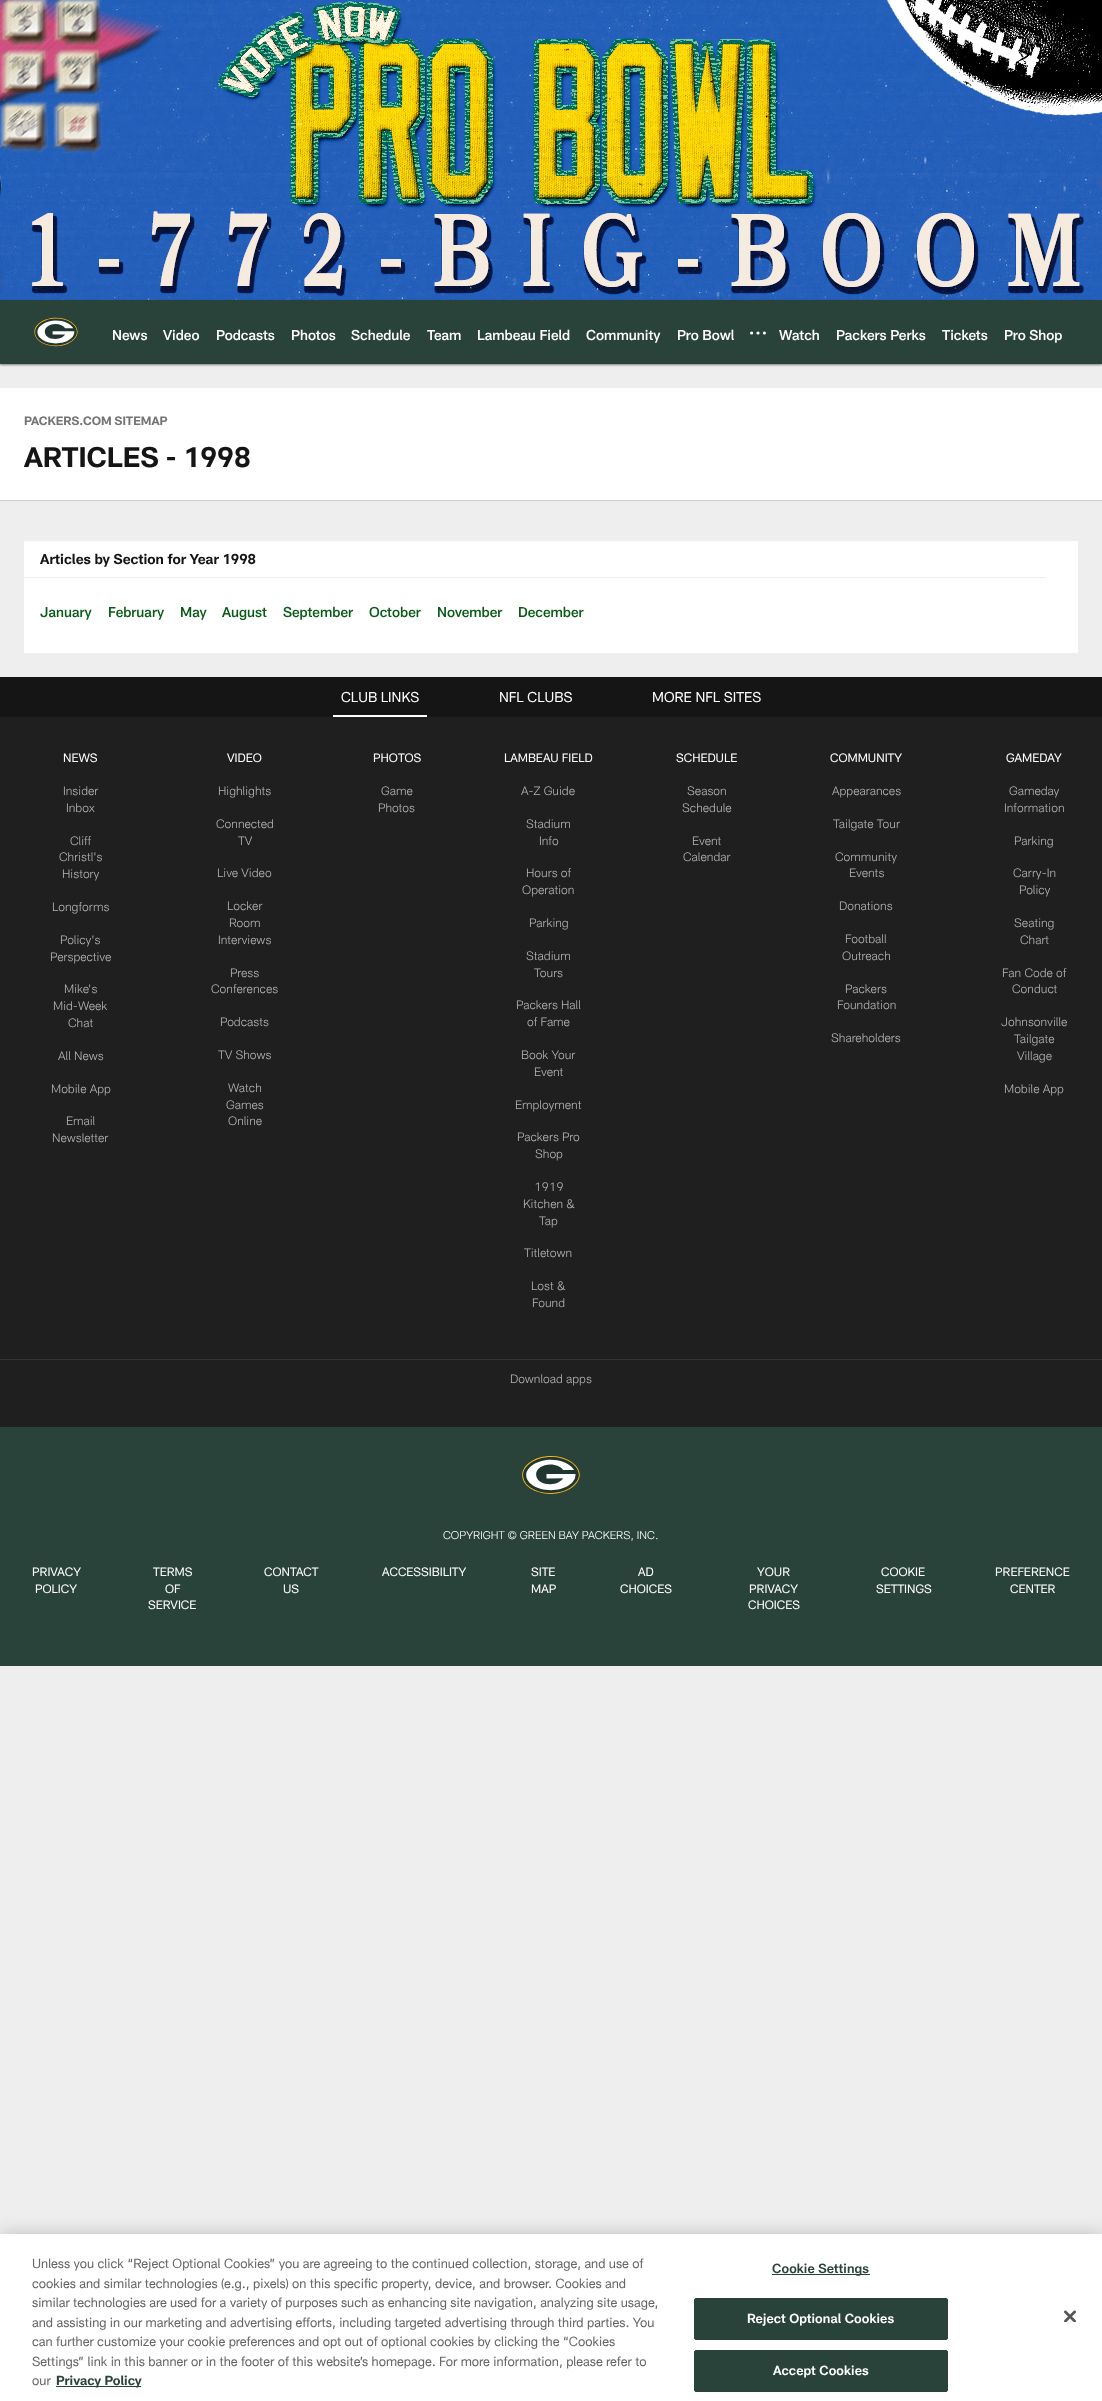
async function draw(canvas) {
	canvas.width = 1102;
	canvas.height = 2401;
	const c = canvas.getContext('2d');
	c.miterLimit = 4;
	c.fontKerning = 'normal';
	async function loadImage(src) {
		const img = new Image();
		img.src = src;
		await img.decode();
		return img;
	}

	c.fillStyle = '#eee';
	c.fillRect(0, 0, 1102, 2401);
	c.drawImage(await loadImage('img1.png'), 0, 0, 1102, 300);
	c.fillStyle = '#00000078';
	c.filter = 'blur(1px)';
	c.beginPath();
	c.rect(0, 301, 1102, 64);
	c.fill();
	c.filter = 'none';
	c.fillStyle = '#2a433a';
	c.fillRect(0, 300, 1102, 64);
	c.drawImage(await loadImage('img2.png'), 34, 317, 44, 30);
	c.font = '500 14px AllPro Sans';
	c.fillStyle = '#fff';
	for (const [text, x, y] of [
		['News', 112, 340],
		['Video', 163, 340],
		['Podcasts', 216, 340],
		['Photos', 291, 340],
		['Schedule', 351, 340],
		['Team', 427, 340],
		['Lambeau Field', 477, 340],
		['Community', 586, 340],
		['Pro Bowl', 677, 340],
	]) {
		c.fillText(text, x, y);
	}
	c.beginPath();
	c.arc(764.4, 333, 1.6, 0, 2 * Math.PI);
	c.fill();
	c.beginPath();
	c.arc(758, 333, 1.6, 0, 2 * Math.PI);
	c.fill();
	c.beginPath();
	c.arc(751.6, 333, 1.6, 0, 2 * Math.PI);
	c.fill();
	for (const [text, x, y] of [
		['Watch', 779, 340],
		['Packers Perks', 836, 340],
		['Tickets', 942, 340],
		['Pro Shop', 1004, 340],
	]) {
		c.fillText(text, x, y);
	}
	c.fillRect(0, 388, 1102, 112);
	c.fillStyle = '#ccc';
	c.fillRect(0, 500, 1102, 1);
	c.font = 'bold 12px AllPro Sans';
	c.fillStyle = '#757575';
	c.fillText('PACKERS.COM SITEMAP', 24, 425);
	c.font = 'bold 28px AllPro Sans';
	c.fillStyle = '#151515';
	c.fillText('ARTICLES - 1998', 24, 467);
	c.fillStyle = '#fff';
	c.fillRect(24, 541, 1054, 112);
	c.font = 'bold 14px AllPro Sans';
	c.fillStyle = '#151515';
	c.fillText('Articles by Section for Year 1998', 40, 564);
	c.fillStyle = '#eee';
	c.fillRect(24, 577, 1022, 1);
	c.font = '500 14px AllPro Sans';
	c.fillStyle = '#085c16';
	for (const [text, x, y] of [
		['January', 40, 617],
		['February', 108, 617],
		['May', 180, 617],
		['August', 222, 617],
		['September', 283, 617],
		['October', 369, 617],
		['November', 437, 617],
		['December', 518, 617],
	]) {
		c.fillText(text, x, y);
	}
	for (const [x, y, w, h, color] of [
		[0, 717, 1102, 642, '#1f1f1f'],
		[0, 677, 1102, 40, '#151515'],
		[333, 715, 94, 2, '#fff'],
	]) {
		c.fillStyle = color;
		c.fillRect(x, y, w, h);
	}
	c.font = '14px AllPro Sans';
	for (const [text, x, y] of [
		['CLUB LINKS', 341, 702],
		['NFL CLUBS', 499, 702],
		['MORE NFL SITES', 652, 702],
	]) {
		c.fillText(text, x, y);
	}
	c.font = '12px AllPro Sans';
	c.fillText('NEWS', 63, 762);
	c.font = '300 12px AllPro Sans';
	c.fillStyle = '#b2b2b2';
	for (const [text, x, y] of [
		['Insider', 63, 795],
		['Inbox', 66, 812],
		['Cliff', 70, 845],
		['Christl\'s', 59, 861],
		['History', 62, 878],
		['Longforms', 52, 911],
		['Policy\'s', 60, 944],
		['Perspective', 50, 961],
		['Mike\'s', 64, 993],
		['Mid-Week', 53, 1010],
		['Chat', 68, 1027],
		['All News', 58, 1060],
		['Mobile App', 51, 1093],
		['Email', 66, 1125],
		['Newsletter', 52, 1142],
	]) {
		c.fillText(text, x, y);
	}
	c.font = '12px AllPro Sans';
	c.fillStyle = '#fff';
	c.fillText('VIDEO', 227, 762);
	c.font = '300 12px AllPro Sans';
	c.fillStyle = '#b2b2b2';
	for (const [text, x, y] of [
		['Highlights', 218, 795],
		['Connected', 216, 828],
		['TV', 238, 845],
		['Live Video', 217, 877],
		['Locker', 227, 910],
		['Room', 229, 927],
		['Interviews', 218, 944],
		['Press', 230, 977],
		['Conferences', 211, 993],
		['Podcasts', 220, 1026],
		['TV Shows', 218, 1059],
		['Watch', 228, 1092],
		['Games', 226, 1109],
		['Online', 228, 1125],
	]) {
		c.fillText(text, x, y);
	}
	c.font = '12px AllPro Sans';
	c.fillStyle = '#fff';
	c.fillText('PHOTOS', 373, 762);
	c.font = '300 12px AllPro Sans';
	c.fillStyle = '#b2b2b2';
	c.fillText('Game', 381, 795);
	c.fillText('Photos', 378, 812);
	c.font = '12px AllPro Sans';
	c.fillStyle = '#fff';
	c.fillText('LAMBEAU FIELD', 504, 762);
	c.font = '300 12px AllPro Sans';
	c.fillStyle = '#b2b2b2';
	for (const [text, x, y] of [
		['A-Z Guide', 521, 795],
		['Stadium', 526, 828],
		['Info', 539, 845],
		['Hours of', 526, 877],
		['Operation', 522, 894],
		['Parking', 529, 927],
		['Stadium', 526, 960],
		['Tours', 534, 977],
		['Packers Hall', 516, 1009],
		['of Fame', 527, 1026],
		['Book Your', 521, 1059],
		['Event', 534, 1076],
		['Employment', 515, 1109],
		['Packers Pro', 517, 1141],
		['Shop', 535, 1158],
		['1919', 534, 1191],
		['Kitchen &', 523, 1208],
		['Tap', 539, 1225],
		['Titletown', 524, 1257],
		['Lost &', 531, 1290],
		['Found', 532, 1307],
	]) {
		c.fillText(text, x, y);
	}
	c.font = '12px AllPro Sans';
	c.fillStyle = '#fff';
	c.fillText('SCHEDULE', 676, 762);
	c.font = '300 12px AllPro Sans';
	c.fillStyle = '#b2b2b2';
	for (const [text, x, y] of [
		['Season', 687, 795],
		['Schedule', 682, 812],
		['Event', 692, 845],
		['Calendar', 683, 861],
	]) {
		c.fillText(text, x, y);
	}
	c.font = '12px AllPro Sans';
	c.fillStyle = '#fff';
	c.fillText('COMMUNITY', 830, 762);
	c.font = '300 12px AllPro Sans';
	c.fillStyle = '#b2b2b2';
	for (const [text, x, y] of [
		['Appearances', 832, 795],
		['Tailgate Tour', 833, 828],
		['Community', 835, 861],
		['Events', 849, 877],
		['Donations', 839, 910],
		['Football', 845, 943],
		['Outreach', 842, 960],
		['Packers', 845, 993],
		['Foundation', 837, 1009],
		['Shareholders', 831, 1042],
	]) {
		c.fillText(text, x, y);
	}
	c.font = '12px AllPro Sans';
	c.fillStyle = '#fff';
	c.fillText('GAMEDAY', 1006, 762);
	c.font = '300 12px AllPro Sans';
	c.fillStyle = '#b2b2b2';
	for (const [text, x, y] of [
		['Gameday', 1009, 795],
		['Information', 1004, 812],
		['Parking', 1014, 845],
		['Carry-In', 1013, 877],
		['Policy', 1019, 894],
		['Seating', 1014, 927],
		['Chart', 1020, 944],
		['Fan Code of', 1002, 977],
		['Conduct', 1012, 993],
		['Johnsonville', 1001, 1026],
		['Tailgate', 1014, 1043],
		['Village', 1017, 1060],
		['Mobile App', 1004, 1093],
	]) {
		c.fillText(text, x, y);
	}
	c.fillStyle = '#1f1f1f';
	c.fillRect(0, 1360, 1102, 67);
	c.fillStyle = '#333';
	c.fillRect(0, 1359, 1102, 1);
	c.fillStyle = '#b2b2b2';
	c.fillText('Download apps', 510, 1383);
	c.fillStyle = '#2a433a';
	c.fillRect(0, 1427, 1102, 239);
	c.drawImage(await loadImage('img3.png'), 522, 1456, 58, 38);
	c.font = '300 11px AllPro Sans';
	c.fillStyle = '#fff';
	c.fillText('COPYRIGHT © GREEN BAY PACKERS, INC.', 443, 1539);
	c.font = '12px AllPro Sans';
	for (const [text, x, y] of [
		['PRIVACY', 32, 1576],
		['POLICY', 35, 1593],
		['TERMS', 153, 1576],
		['OF', 165, 1593],
		['SERVICE', 148, 1609],
		['CONTACT', 264, 1576],
		['US', 283, 1593],
		['ACCESSIBILITY', 382, 1576],
		['SITE', 531, 1576],
		['MAP', 531, 1593],
		['AD', 638, 1576],
		['CHOICES', 620, 1593],
		['YOUR', 757, 1576],
		['PRIVACY', 749, 1593],
		['CHOICES', 748, 1609],
		['COOKIE', 881, 1576],
		['SETTINGS', 876, 1593],
		['PREFERENCE', 995, 1576],
		['CENTER', 1010, 1593],
	]) {
		c.fillText(text, x, y);
	}
	c.fillStyle = '#00000033';
	c.filter = 'blur(9px)';
	c.beginPath();
	c.rect(0, 2234, 1102, 167);
	c.fill();
	c.filter = 'none';
	c.fillStyle = '#fff';
	c.fillRect(0, 2234, 1102, 167);
	c.font = '13px AllPro Sans';
	c.fillStyle = '#666';
	for (const [text, x, y] of [
		['Unless you click “Reject Optional Cookies” you are agreeing to the continued collection, storage, and use of', 32, 2268],
		['cookies and similar technologies (e.g., pixels) on this specific property, device, and browser. Cookies and', 32, 2288],
		['similar technologies are used for a variety of purposes such as enhancing site navigation, analyzing site usage,', 32, 2307],
		['and assisting in our marketing and advertising efforts, including targeted advertising through third parties. You', 32, 2327],
		['can further customize your cookie preferences and opt out of optional cookies by clicking the “Cookies', 32, 2346],
		['Settings” link in this banner or in the footer of this website’s homepage. For more information, please refer to', 32, 2366],
		['our', 32, 2385],
	]) {
		c.fillText(text, x, y);
	}
	c.fillStyle = '#2a433a';
	c.fillRect(56, 2386, 85, 1);
	c.font = 'bold 13px AllPro Sans';
	c.fillText('Privacy Policy', 56, 2385);
	c.fillRect(772, 2274, 98, 1);
	c.letterSpacing = '0.1px';
	c.font = '600 13px AllPro Sans';
	c.fillText('Cookie Settings', 772, 2273);
	c.beginPath();
	c.roundRect(694.5, 2298.5, 253, 41, 1.5);
	c.fill();
	c.strokeStyle = '#2a433a';
	c.stroke();
	c.fillStyle = '#fff';
	c.fillText('Reject Optional Cookies', 747, 2323);
	c.fillStyle = '#2a433a';
	c.beginPath();
	c.roundRect(694.5, 2350.5, 253, 41, 1.5);
	c.fill();
	c.stroke();
	c.fillStyle = '#fff';
	c.fillText('Accept Cookies', 773, 2375);
	c.drawImage(await loadImage('img4.png'), 1064, 2310, 12, 12);
}

draw(document.querySelector('canvas'));
